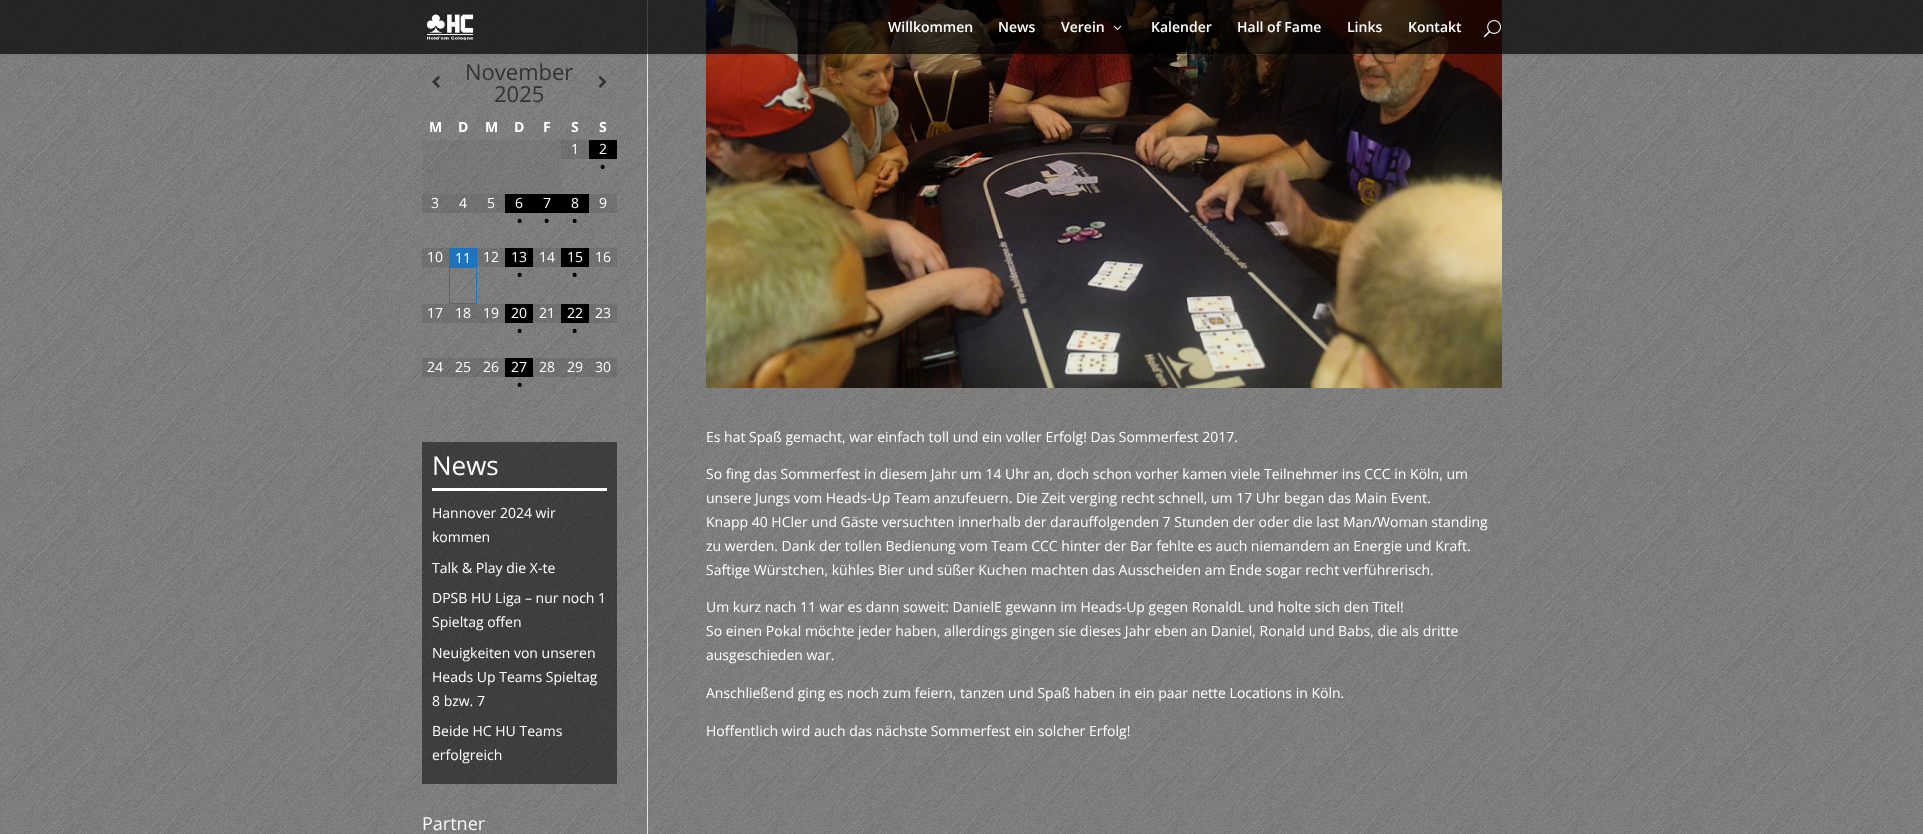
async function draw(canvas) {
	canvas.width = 1923;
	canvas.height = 834;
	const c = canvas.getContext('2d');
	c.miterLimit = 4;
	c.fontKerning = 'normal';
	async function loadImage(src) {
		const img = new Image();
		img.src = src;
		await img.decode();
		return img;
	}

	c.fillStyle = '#fff';
	c.fillRect(0, 0, 1923, 834);
	c.drawImage(await loadImage('img4.png'), 0, 0, 1923, 834);
	c.fillStyle = '#e2e2e2';
	c.fillRect(647, 0, 1, 834);
	c.drawImage(await loadImage('img7.png'), 706, 0, 796, 388);
	c.save();
	c.beginPath();
	c.rect(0, 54, 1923, 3);
	c.clip();
	c.fillStyle = '#0000001a';
	c.filter = 'blur(3.5px)';
	c.beginPath();
	c.rect(0, 0, 1923, 54);
	c.fill();
	c.filter = 'none';
	c.restore();
	c.fillStyle = '#000000b3';
	c.fillRect(0, 0, 1923, 54);
	c.drawImage(await loadImage('img1.png'), 427, 14, 47, 27);
	c.font = '600 14px Open Sans';
	c.fillStyle = '#fff';
	for (const [text, x, y] of [
		['Willkommen', 888, 32],
		['News', 998, 32],
		['Verein', 1061, 32],
	]) {
		c.fillText(text, x, y);
	}
	c.drawImage(await loadImage('img2.png'), 1113, 25, 9, 5);
	for (const [text, x, y] of [
		['Kalender', 1151, 32],
		['Hall of Fame', 1237, 32],
		['Links', 1347, 32],
		['Kontakt', 1408, 32],
	]) {
		c.fillText(text, x, y);
	}
	c.drawImage(await loadImage('img3.png'), 1484, 20, 17, 18);
	c.drawImage(await loadImage('img5.png'), 432, 76, 8, 12);
	c.font = '22px Open Sans';
	c.fillStyle = '#333';
	c.fillText('November', 465, 80);
	c.fillText('2025', 494, 102);
	c.drawImage(await loadImage('img6.png'), 598, 76, 9, 12);
	c.font = 'bold 14px Open Sans';
	c.fillStyle = '#fff';
	for (const [text, x, y] of [
		['M', 429, 132],
		['D', 458, 132],
		['M', 485, 132],
		['D', 514, 132],
		['F', 543, 132],
		['S', 571, 132],
		['S', 599, 132],
	]) {
		c.fillText(text, x, y);
	}
	for (const [x, y, w, h, color] of [
		[422, 140, 27, 54, '#0000000a'],
		[449, 140, 28, 54, '#0000000a'],
		[477, 140, 28, 54, '#0000000a'],
		[505, 140, 28, 54, '#0000000a'],
		[533, 140, 28, 54, '#0000000a'],
		[561, 140, 28, 19, '#0000001a'],
	]) {
		c.fillStyle = color;
		c.fillRect(x, y, w, h);
	}
	c.font = '14px Open Sans';
	c.fillStyle = '#fff';
	c.fillText('1', 571, 154);
	c.fillStyle = '#000';
	c.fillRect(589, 140, 28, 19);
	c.fillStyle = '#fff';
	c.fillText('2', 599, 154);
	c.font = 'bold 14px Open Sans';
	c.fillStyle = '#000';
	c.fillText('•', 600, 172);
	c.fillStyle = '#0000001a';
	c.fillRect(422, 194, 27, 19);
	c.font = '14px Open Sans';
	c.fillStyle = '#fff';
	c.fillText('3', 431, 208);
	c.fillStyle = '#0000001a';
	c.fillRect(449, 194, 28, 19);
	c.fillStyle = '#fff';
	c.fillText('4', 459, 208);
	c.fillStyle = '#0000001a';
	c.fillRect(477, 194, 28, 19);
	c.fillStyle = '#fff';
	c.fillText('5', 487, 208);
	c.fillStyle = '#000';
	c.fillRect(505, 194, 84, 19);
	c.fillStyle = '#fff';
	c.fillText('6', 515, 208);
	c.font = 'bold 14px Open Sans';
	c.fillStyle = '#000';
	c.fillText('•', 517, 226);
	c.font = '14px Open Sans';
	c.fillStyle = '#fff';
	c.fillText('7', 543, 208);
	c.font = 'bold 14px Open Sans';
	c.fillStyle = '#000';
	c.fillText('•', 544, 226);
	c.font = '14px Open Sans';
	c.fillStyle = '#fff';
	c.fillText('8', 571, 208);
	c.font = 'bold 14px Open Sans';
	c.fillStyle = '#000';
	c.fillText('•', 572, 226);
	c.fillStyle = '#0000001a';
	c.fillRect(589, 194, 28, 19);
	c.font = '14px Open Sans';
	c.fillStyle = '#fff';
	c.fillText('9', 599, 208);
	c.fillStyle = '#0000001a';
	c.fillRect(422, 248, 27, 19);
	c.fillStyle = '#fff';
	c.fillText('10', 427, 262);
	c.strokeStyle = '#1e73be';
	c.strokeRect(449.5, 248.5, 27, 55);
	c.fillStyle = '#1e73be';
	c.fillRect(450, 249, 26, 19);
	c.fillStyle = '#fff';
	c.fillText('11', 455, 263);
	c.fillStyle = '#0000001a';
	c.fillRect(477, 248, 28, 19);
	c.fillStyle = '#fff';
	c.fillText('12', 483, 262);
	c.fillStyle = '#000';
	c.fillRect(505, 248, 28, 19);
	c.fillStyle = '#fff';
	c.fillText('13', 511, 262);
	c.font = 'bold 14px Open Sans';
	c.fillStyle = '#000';
	c.fillText('•', 517, 280);
	c.fillStyle = '#0000001a';
	c.fillRect(533, 248, 28, 19);
	c.font = '14px Open Sans';
	c.fillStyle = '#fff';
	c.fillText('14', 539, 262);
	c.fillStyle = '#000';
	c.fillRect(561, 248, 28, 19);
	c.fillStyle = '#fff';
	c.fillText('15', 567, 262);
	c.font = 'bold 14px Open Sans';
	c.fillStyle = '#000';
	c.fillText('•', 572, 280);
	c.fillStyle = '#0000001a';
	c.fillRect(589, 248, 28, 19);
	c.font = '14px Open Sans';
	c.fillStyle = '#fff';
	c.fillText('16', 595, 262);
	c.fillStyle = '#0000001a';
	c.fillRect(422, 304, 27, 19);
	c.fillStyle = '#fff';
	c.fillText('17', 427, 318);
	c.fillStyle = '#0000001a';
	c.fillRect(449, 304, 28, 19);
	c.fillStyle = '#fff';
	c.fillText('18', 455, 318);
	c.fillStyle = '#0000001a';
	c.fillRect(477, 304, 28, 19);
	c.fillStyle = '#fff';
	c.fillText('19', 483, 318);
	c.fillStyle = '#000';
	c.fillRect(505, 304, 28, 19);
	c.fillStyle = '#fff';
	c.fillText('20', 511, 318);
	c.font = 'bold 14px Open Sans';
	c.fillStyle = '#000';
	c.fillText('•', 517, 336);
	c.fillStyle = '#0000001a';
	c.fillRect(533, 304, 28, 19);
	c.font = '14px Open Sans';
	c.fillStyle = '#fff';
	c.fillText('21', 539, 318);
	c.fillStyle = '#000';
	c.fillRect(561, 304, 28, 19);
	c.fillStyle = '#fff';
	c.fillText('22', 567, 318);
	c.font = 'bold 14px Open Sans';
	c.fillStyle = '#000';
	c.fillText('•', 572, 336);
	c.fillStyle = '#0000001a';
	c.fillRect(589, 304, 28, 19);
	c.font = '14px Open Sans';
	c.fillStyle = '#fff';
	c.fillText('23', 595, 318);
	c.fillStyle = '#0000001a';
	c.fillRect(422, 358, 27, 19);
	c.fillStyle = '#fff';
	c.fillText('24', 427, 372);
	c.fillStyle = '#0000001a';
	c.fillRect(449, 358, 28, 19);
	c.fillStyle = '#fff';
	c.fillText('25', 455, 372);
	c.fillStyle = '#0000001a';
	c.fillRect(477, 358, 28, 19);
	c.fillStyle = '#fff';
	c.fillText('26', 483, 372);
	c.fillStyle = '#000';
	c.fillRect(505, 358, 28, 19);
	c.fillStyle = '#fff';
	c.fillText('27', 511, 372);
	c.font = 'bold 14px Open Sans';
	c.fillStyle = '#000';
	c.fillText('•', 517, 390);
	c.fillStyle = '#0000001a';
	c.fillRect(533, 358, 28, 19);
	c.font = '14px Open Sans';
	c.fillStyle = '#fff';
	c.fillText('28', 539, 372);
	c.fillStyle = '#0000001a';
	c.fillRect(561, 358, 28, 19);
	c.fillStyle = '#fff';
	c.fillText('29', 567, 372);
	c.fillStyle = '#0000001a';
	c.fillRect(589, 358, 28, 19);
	c.fillStyle = '#fff';
	c.fillText('30', 595, 372);
	c.fillStyle = '#00000080';
	c.fillRect(422, 442, 195, 342);
	c.fillStyle = '#fff';
	c.fillRect(432, 488, 175, 3);
	c.font = '26px Open Sans';
	c.fillText('News', 432, 475);
	c.font = '14px Open Sans';
	for (const [text, x, y] of [
		['Hannover 2024 wir', 432, 518],
		['kommen', 432, 542],
		['Talk & Play die X-te', 432, 573],
		['DPSB HU Liga – nur noch 1', 432, 603],
		['Spieltag offen', 432, 627],
		['Neuigkeiten von unseren', 432, 658],
		['Heads Up Teams Spieltag', 432, 682],
		['8 bzw. 7', 432, 706],
		['Beide HC HU Teams', 432, 736],
		['erfolgreich', 432, 760],
	]) {
		c.fillText(text, x, y);
	}
	c.font = '18px Open Sans';
	c.fillStyle = '#f8f8f8';
	c.fillText('Partner', 422, 830);
	c.font = '14px Open Sans';
	c.fillStyle = '#fff';
	for (const [text, x, y] of [
		['Es hat Spaß gemacht, war einfach toll und ein voller Erfolg! Das Sommerfest 2017.', 706, 442],
		['So fing das Sommerfest in diesem Jahr um 14 Uhr an, doch schon vorher kamen viele Teilnehmer ins CCC in Köln, um', 706, 479],
		['unsere Jungs vom Heads-Up Team anzufeuern. Die Zeit verging recht schnell, um 17 Uhr began das Main Event.', 706, 503],
		['Knapp 40 HCler und Gäste versuchten innerhalb der darauffolgenden 7 Stunden der oder die last Man/Woman standing', 706, 527],
		['zu werden. Dank der tollen Bedienung vom Team CCC hinter der Bar fehlte es auch niemandem an Energie und Kraft.', 706, 551],
		['Saftige Würstchen, kühles Bier und süßer Kuchen machten das Ausscheiden am Ende sogar recht verführerisch.', 706, 575],
		['Um kurz nach 11 war es dann soweit: DanielE gewann im Heads-Up gegen RonaldL und holte sich den Titel!', 706, 612],
		['So einen Pokal möchte jeder haben, allerdings gingen sie dieses Jahr eben an Daniel, Ronald und Babs, die als dritte', 706, 636],
		['ausgeschieden war.', 706, 660],
		['Anschließend ging es noch zum feiern, tanzen und Spaß haben in ein paar nette Locations in Köln.', 706, 698],
		['Hoffentlich wird auch das nächste Sommerfest ein solcher Erfolg!', 706, 736],
	]) {
		c.fillText(text, x, y);
	}
}

draw(document.querySelector('canvas'));
